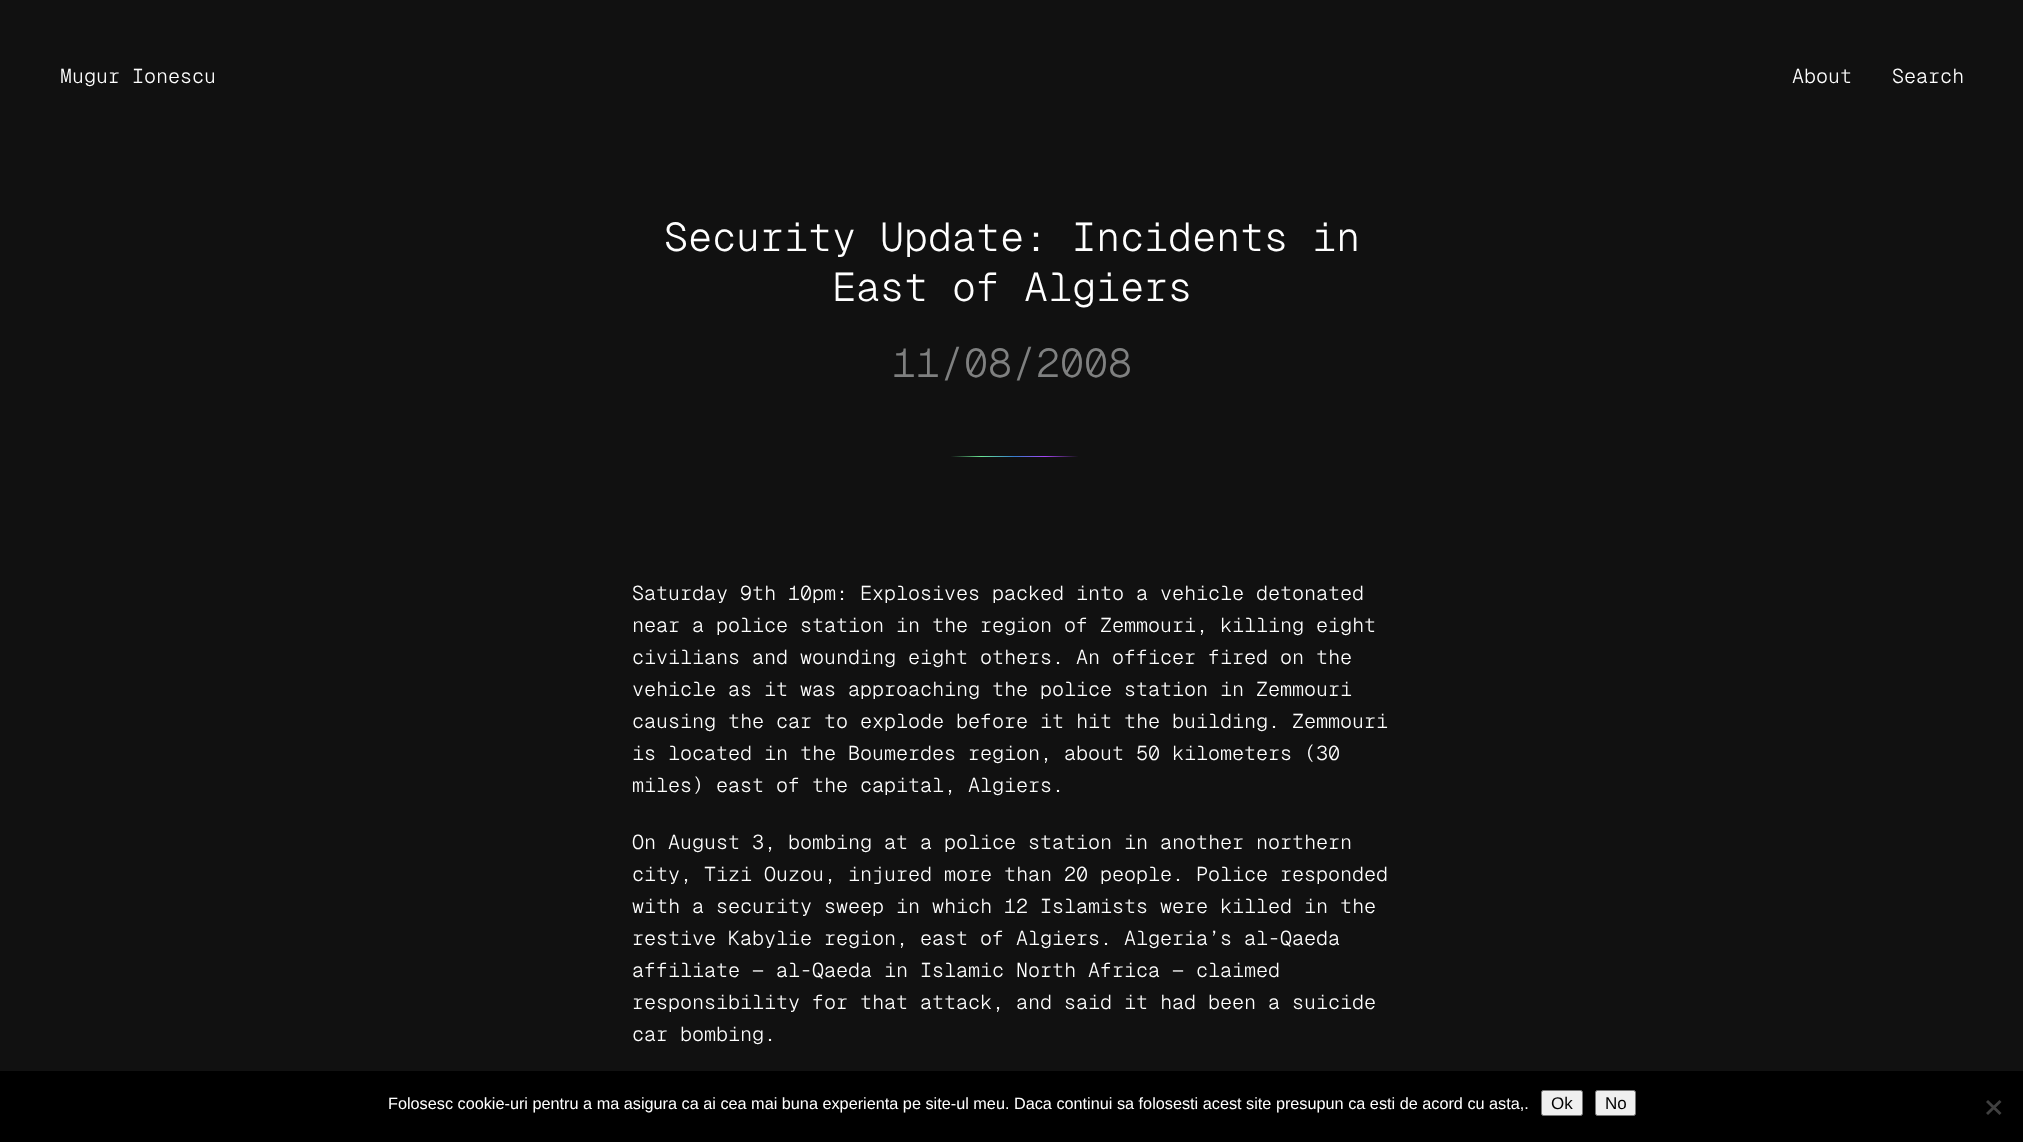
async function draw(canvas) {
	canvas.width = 2023;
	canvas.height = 1142;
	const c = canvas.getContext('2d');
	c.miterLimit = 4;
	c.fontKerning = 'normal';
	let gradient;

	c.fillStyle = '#111';
	c.fillRect(0, 0, 2023, 1142);
	c.font = '300 20px Geist Mono';
	c.fillStyle = '#fff';
	for (const [text, x, y] of [
		['Mugur Ionescu', 60, 83],
		['About', 1792, 83],
		['Search', 1892, 83],
	]) {
		c.fillText(text, x, y);
	}
	c.font = '300 40px Geist Mono';
	c.fillText('Security Update: Incidents in', 664, 251);
	c.fillText('East of Algiers', 832, 301);
	c.fillStyle = '#7f8080';
	c.fillText('11/08/2008', 892, 377);
	gradient = c.createLinearGradient(933, 457, 1093, 457);
	gradient.addColorStop(0.11, '#111');
	gradient.addColorStop(0.3, '#6be795');
	gradient.addColorStop(0.51, '#367ccf');
	gradient.addColorStop(0.7, '#a746f6');
	gradient.addColorStop(0.91, '#111');
	c.fillStyle = gradient;
	c.fillRect(951, 456, 127, 1);
	c.font = '300 20px Geist Mono';
	c.fillStyle = '#fff';
	for (const [text, x, y] of [
		['Saturday 9th 10pm: Explosives packed into a vehicle detonated', 632, 600],
		['near a police station in the region of Zemmouri, killing eight', 632, 632],
		['civilians and wounding eight others. An officer fired on the', 632, 664],
		['vehicle as it was approaching the police station in Zemmouri', 632, 696],
		['causing the car to explode before it hit the building. Zemmouri', 632, 728],
		['is located in the Boumerdes region, about 50 kilometers (30', 632, 760],
		['miles) east of the capital, Algiers.', 632, 792],
		['On August 3, bombing at a police station in another northern', 632, 849],
		['city, Tizi Ouzou, injured more than 20 people. Police responded', 632, 881],
		['with a security sweep in which 12 Islamists were killed in the', 632, 913],
		['restive Kabylie region, east of Algiers. Algeria’s al-Qaeda', 632, 945],
		['affiliate — al-Qaeda in Islamic North Africa — claimed', 632, 977],
		['responsibility for that attack, and said it had been a suicide', 632, 1009],
		['car bombing.', 632, 1041],
	]) {
		c.fillText(text, x, y);
	}
	c.fillStyle = '#000';
	c.fillRect(0, 1071, 2023, 71);
	c.font = '16.25px Liberation Sans';
	c.fillStyle = '#fff';
	c.fillText('Folosesc cookie-uri pentru a ma asigura ca ai cea mai buna experienta pe site-ul meu. Daca continui sa folosesti acest site presupun ca esti de acord cu asta,.', 388, 1109);
	c.fillStyle = '#efefef';
	c.beginPath();
	c.roundRect(1541.5, 1090.5, 41, 25, 2);
	c.fill();
	c.strokeStyle = '#767676';
	c.stroke();
	c.font = '17px Liberation Sans';
	c.fillStyle = '#000';
	c.fillText('Ok', 1551, 1109);
	c.fillStyle = '#efefef';
	c.beginPath();
	c.roundRect(1595.5, 1090.5, 40, 25, 2);
	c.fill();
	c.stroke();
	c.fillStyle = '#000';
	c.fillText('No', 1605, 1109);
	c.fillStyle = '#404040';
	c.beginPath();
	c.moveTo(1999.5, 1100);
	c.lineTo(2001.5, 1102);
	c.lineTo(1988, 1115);
	c.lineTo(1986, 1113);
	c.closePath();
	c.fill();
	c.beginPath();
	c.moveTo(1986, 1102);
	c.lineTo(1988, 1100);
	c.lineTo(2001.5, 1113);
	c.lineTo(1999.5, 1115);
	c.closePath();
	c.fill();
}

draw(document.querySelector('canvas'));
